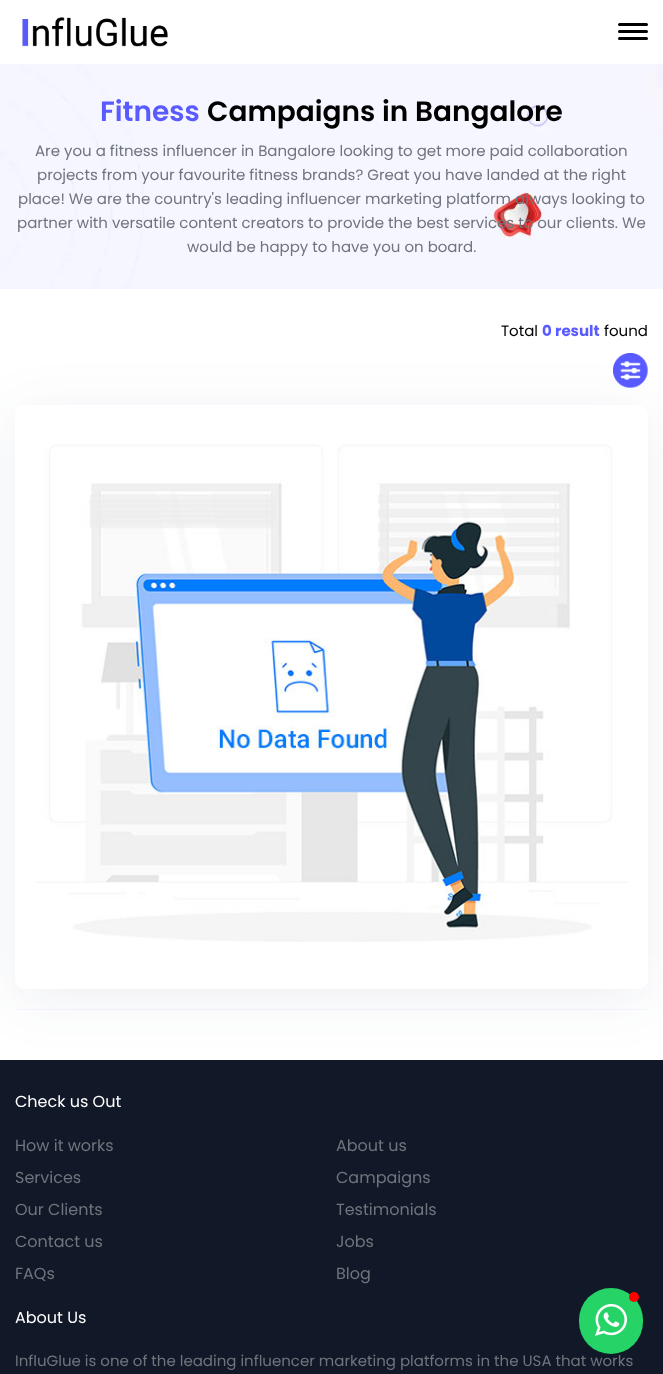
async function draw(canvas) {
	canvas.width = 663;
	canvas.height = 1374;
	const c = canvas.getContext('2d');
	c.miterLimit = 4;
	c.fontKerning = 'normal';
	async function loadImage(src) {
		const img = new Image();
		img.src = src;
		await img.decode();
		return img;
	}

	c.fillStyle = '#fff';
	c.fillRect(0, 0, 663, 1374);
	c.drawImage(await loadImage('img1.png'), 22, 17, 146, 30);
	c.fillStyle = '#000';
	c.beginPath();
	c.roundRect(618, 23, 30, 3, 1.5);
	c.fill();
	c.beginPath();
	c.roundRect(618, 30, 30, 3, 1.5);
	c.fill();
	c.beginPath();
	c.roundRect(618, 37, 30, 3, 1.5);
	c.fill();
	c.drawImage(await loadImage('img2.png'), 0, 64, 663, 225);
	c.font = '600 28px Poppins';
	c.fillStyle = '#595aff';
	c.fillText('Fitness', 100, 121);
	c.fillStyle = '#000';
	c.fillText('Campaigns in Bangalore', 207, 121);
	c.font = '15px Poppins';
	c.fillStyle = '#70747d';
	for (const [text, x, y] of [
		['Are you a fitness influencer in Bangalore looking to get more paid collaboration', 35, 156],
		['projects from your favourite fitness brands? Great you have landed at the right', 37, 180],
		['place! We are the country\'s leading influencer marketing platform always looking to', 18, 204],
		['partner with versatile content creators to provide the best services to our clients. We', 17, 228],
		['would be happy to have you on board.', 187, 252],
	]) {
		c.fillText(text, x, y);
	}
	c.fillStyle = '#000';
	c.fillText('Total', 501, 336);
	c.font = 'bold 15px Poppins';
	c.fillStyle = '#595aff';
	c.fillText('0 result', 542, 336);
	c.font = '15px Poppins';
	c.fillStyle = '#000';
	c.fillText('found', 604, 336);
	c.drawImage(await loadImage('img3.png'), 613, 353, 35, 35);
	c.fillStyle = '#f6f6ff';
	c.fillRect(15, 1009, 633, 1);
	c.save();
	c.beginPath();
	c.moveTo(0, 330);
	c.lineTo(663, 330);
	c.lineTo(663, 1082);
	c.lineTo(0, 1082);
	c.closePath();
	c.moveTo(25, 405);
	c.lineTo(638, 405);
	c.bezierCurveTo(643.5, 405, 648, 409.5, 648, 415);
	c.lineTo(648, 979);
	c.bezierCurveTo(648, 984.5, 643.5, 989, 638, 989);
	c.lineTo(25, 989);
	c.bezierCurveTo(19.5, 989, 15, 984.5, 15, 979);
	c.lineTo(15, 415);
	c.bezierCurveTo(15, 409.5, 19.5, 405, 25, 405);
	c.closePath();
	c.clip('evenodd');
	c.fillStyle = '#262d7614';
	c.filter = 'blur(27.5px)';
	c.beginPath();
	c.roundRect(15, 414, 633, 584, 10);
	c.fill();
	c.filter = 'none';
	c.restore();
	c.drawImage(await loadImage('img4.png'), 35, 444, 593, 498);
	c.fillStyle = '#111827';
	c.fillRect(0, 1060, 663, 314);
	c.font = '16px Poppins';
	c.fillStyle = '#fff';
	c.fillText('Check us Out', 15, 1107);
	c.fillStyle = '#70747d';
	for (const [text, x, y] of [
		['How it works', 15, 1151],
		['About us', 336, 1151],
		['Services', 15, 1183],
		['Campaigns', 336, 1183],
		['Our Clients', 15, 1215],
		['Testimonials', 336, 1215],
		['Contact us', 15, 1247],
		['Jobs', 336, 1247],
		['FAQs', 15, 1279],
		['Blog', 336, 1279],
	]) {
		c.fillText(text, x, y);
	}
	c.fillStyle = '#fff';
	c.fillText('About Us', 15, 1323);
	c.font = '15px Poppins';
	c.fillStyle = '#70747d';
	c.fillText('InfluGlue is one of the leading influencer marketing platforms in the USA that works', 15, 1366);
	c.fillStyle = '#25d366';
	c.beginPath();
	c.roundRect(579, 1288, 64, 66, 32);
	c.fill();
	c.fillStyle = '#f00';
	c.beginPath();
	c.arc(634, 1297, 5, 0, 2 * Math.PI);
	c.fill();
	c.drawImage(await loadImage('img5.png'), 595, 1304, 32, 32);
}

draw(document.querySelector('canvas'));
